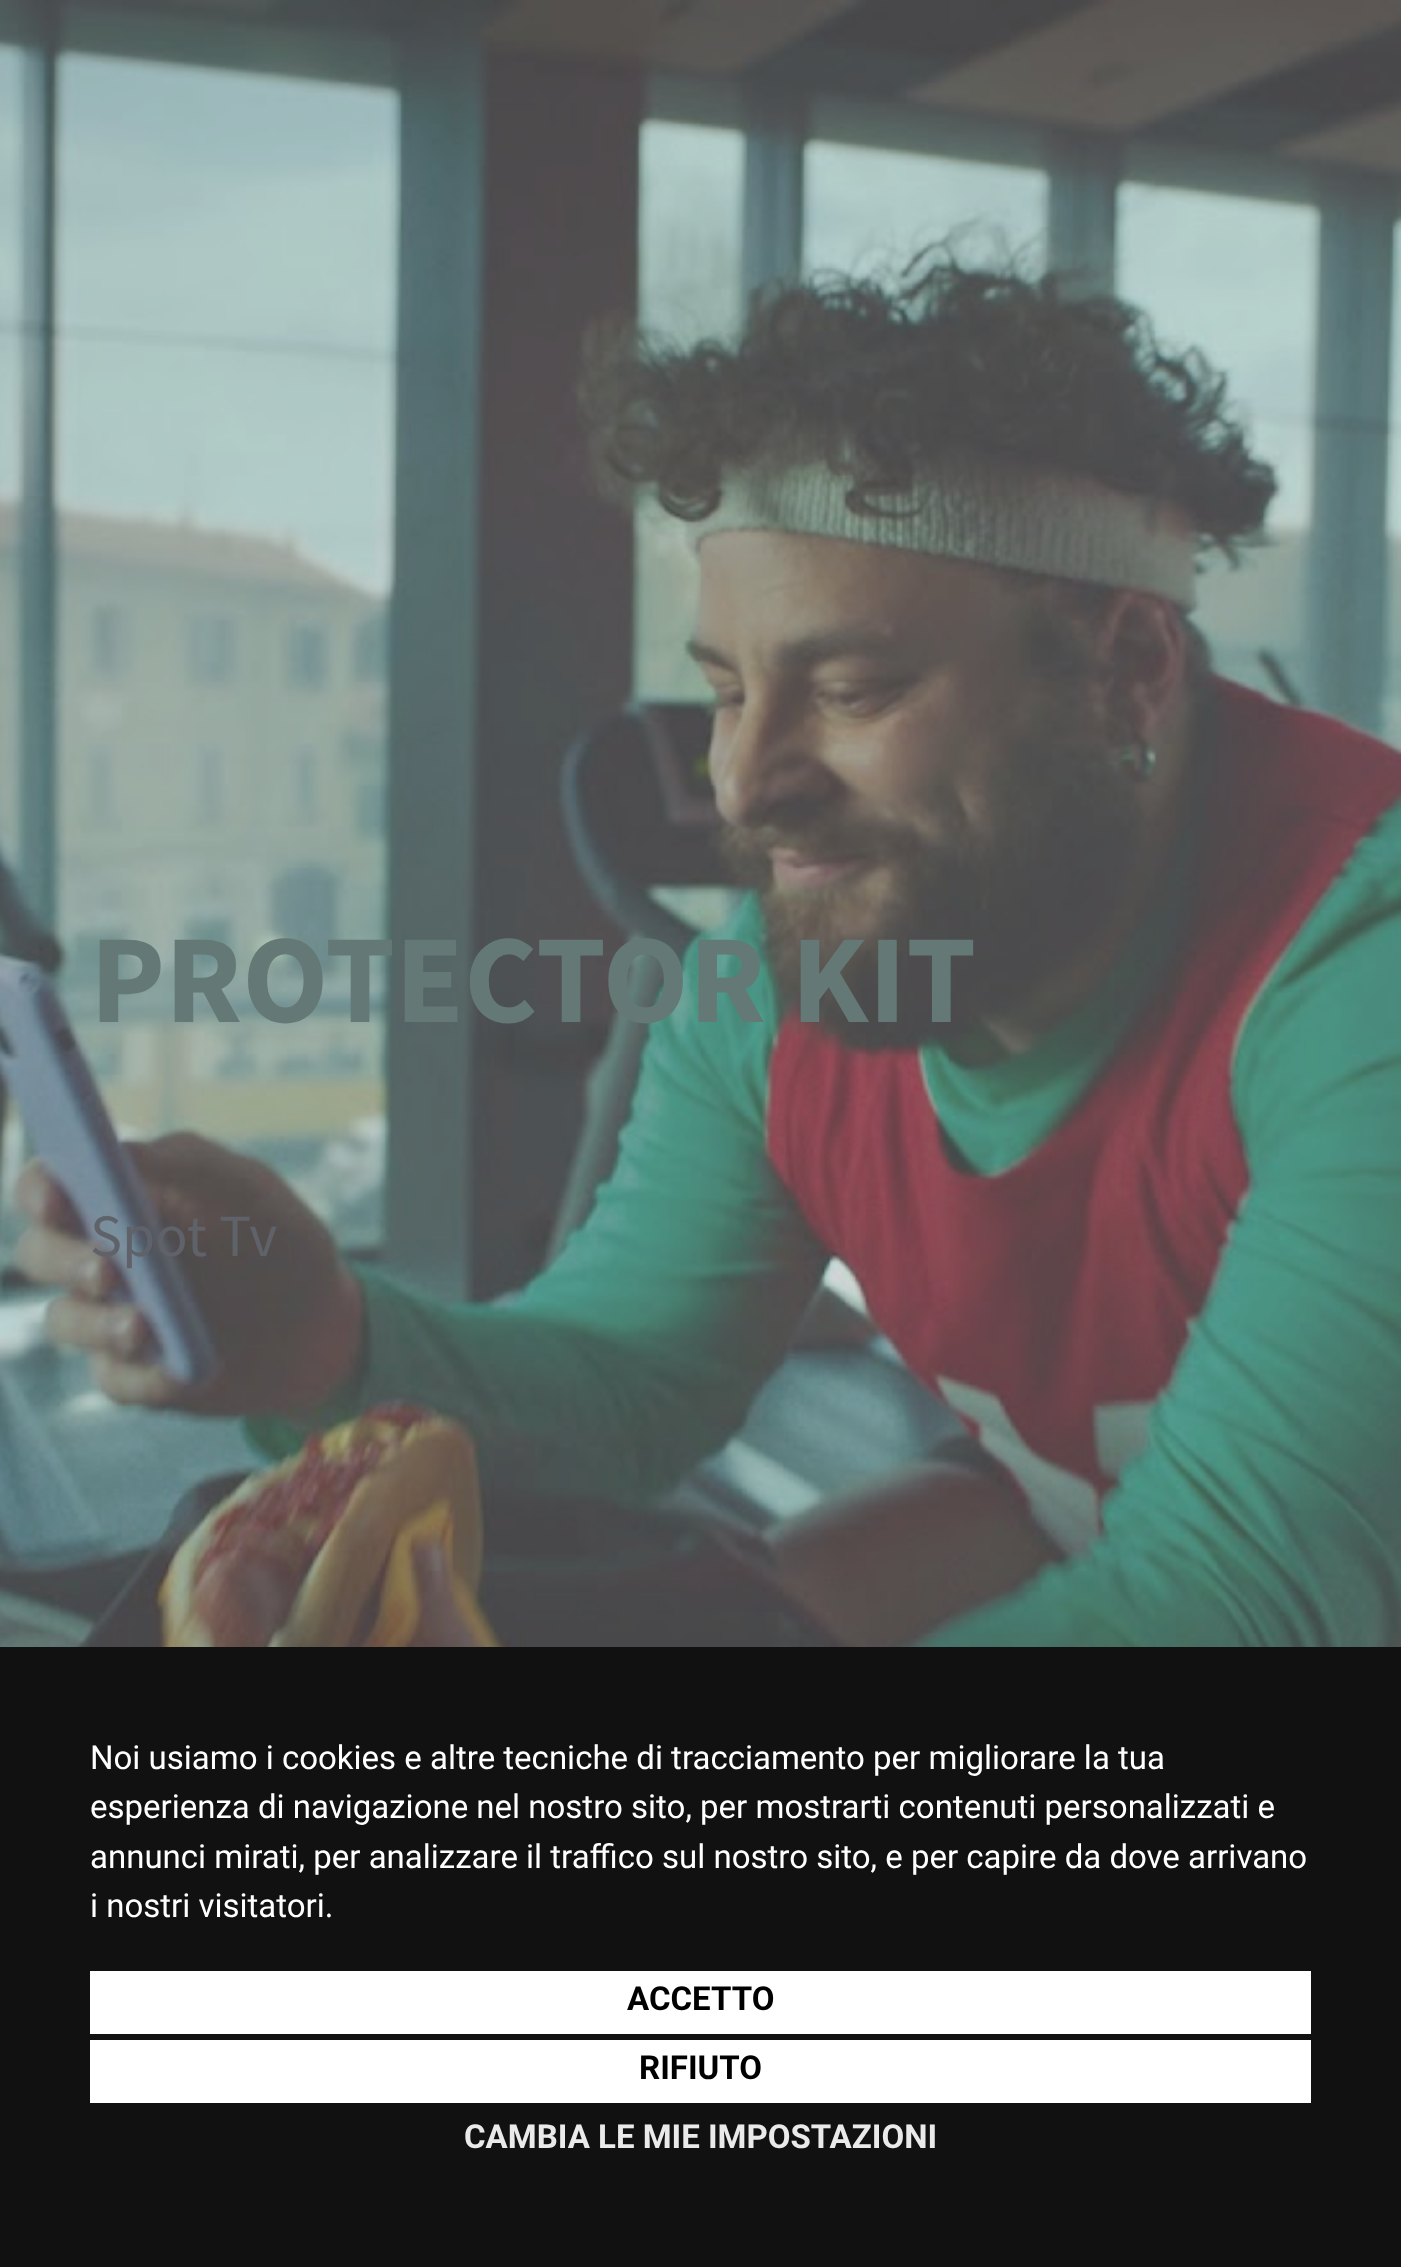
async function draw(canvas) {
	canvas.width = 1401;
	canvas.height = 2267;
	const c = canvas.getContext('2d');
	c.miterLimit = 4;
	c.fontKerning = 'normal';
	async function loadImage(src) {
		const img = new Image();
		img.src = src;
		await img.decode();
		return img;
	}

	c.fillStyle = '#fff';
	c.fillRect(0, 0, 1401, 2267);
	c.drawImage(await loadImage('img1.png'), 0, 0, 1401, 1647);
	c.font = 'bold 126px Source Sans Pro';
	c.fillStyle = '#647975';
	c.fillText('PROTECTOR KIT', 90, 1022);
	c.font = '60px Source Sans Pro';
	c.fillStyle = '#5f6268';
	c.fillText('Spot Tv', 90, 1256);
	c.fillStyle = '#111';
	c.fillRect(0, 1647, 1401, 620);
	c.font = '33px Roboto';
	c.fillStyle = '#fff';
	for (const [text, x, y] of [
		['Noi usiamo i cookies e altre tecniche di tracciamento per migliorare la tua', 90, 1769],
		['esperienza di navigazione nel nostro sito, per mostrarti contenuti personalizzati e', 90, 1818],
		['annunci mirati, per analizzare il traffico sul nostro sito, e per capire da dove arrivano', 90, 1868],
		['i nostri visitatori.', 90, 1917],
	]) {
		c.fillText(text, x, y);
	}
	c.fillRect(90, 1971, 1221, 63);
	c.font = 'bold 33px Roboto';
	c.fillStyle = '#000';
	c.fillText('ACCETTO', 627, 2010);
	c.fillStyle = '#fff';
	c.fillRect(90, 2040, 1221, 63);
	c.fillStyle = '#000';
	c.fillText('RIFIUTO', 639, 2079);
	c.fillStyle = '#eaeaea';
	c.fillText('CAMBIA LE MIE IMPOSTAZIONI', 464, 2148);
}

draw(document.querySelector('canvas'));
